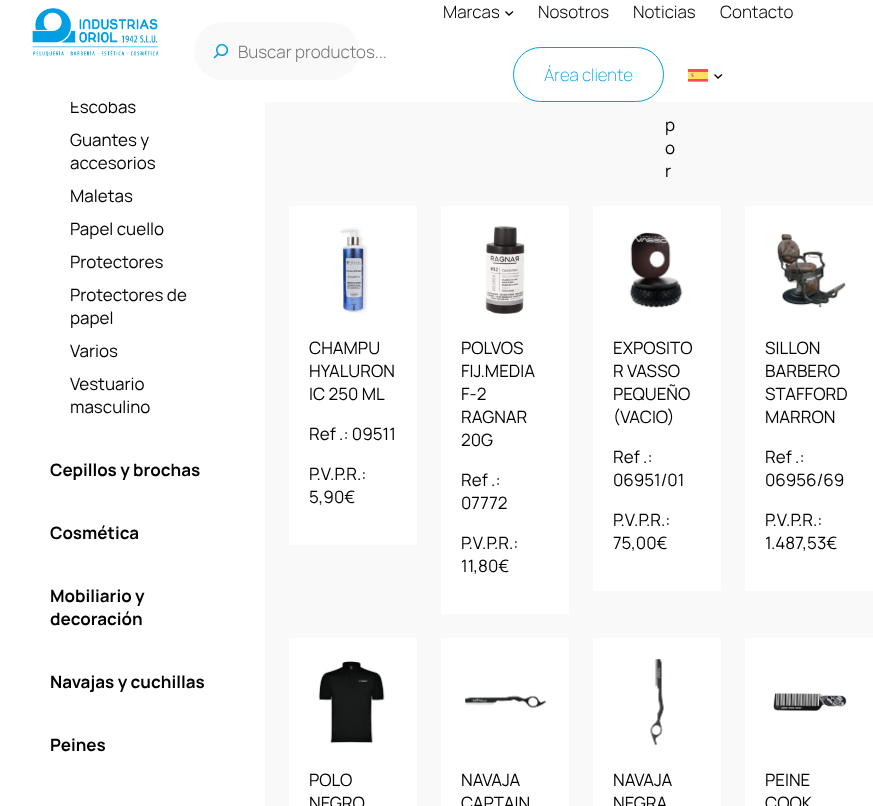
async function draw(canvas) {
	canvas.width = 873;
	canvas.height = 806;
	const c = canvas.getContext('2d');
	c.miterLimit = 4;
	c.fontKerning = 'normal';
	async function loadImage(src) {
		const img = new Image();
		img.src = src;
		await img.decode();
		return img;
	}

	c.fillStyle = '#f9f9f9';
	c.fillRect(0, 0, 873, 806);
	c.fillStyle = '#fff';
	c.fillRect(0, 102, 265, 704);
	c.font = '17px Manrope';
	c.fillStyle = '#000';
	c.fillText('Escobas', 70, 113);
	c.fillStyle = '#fff';
	c.fillRect(0, 0, 873, 102);
	c.drawImage(await loadImage('img1.png'), 32, 8, 127, 48);
	c.fillStyle = '#f9f9f9';
	c.beginPath();
	c.roundRect(194, 22, 165, 58, 29);
	c.fill();
	c.drawImage(await loadImage('img2.png'), 213, 44, 16, 15);
	c.font = '300 17px Manrope';
	c.fillStyle = '#757575';
	c.fillText('Buscar productos...', 238, 58);
	c.fillStyle = '#000';
	c.fillText('Marcas', 443, 18);
	c.beginPath();
	c.moveTo(505.5, 11.5);
	c.lineTo(509, 15);
	c.lineTo(513, 11.5);
	c.strokeStyle = '#000';
	c.lineWidth = 1.3;
	c.stroke();
	for (const [text, x, y] of [
		['Nosotros', 538, 18],
		['Noticias', 633, 18],
		['Contacto', 720, 18],
	]) {
		c.fillText(text, x, y);
	}
	c.beginPath();
	c.roundRect(513.5, 47.5, 150, 54, 27);
	c.strokeStyle = '#009fe3';
	c.lineWidth = 1;
	c.stroke();
	c.font = '200 17px Manrope';
	c.fillStyle = '#009fe3';
	c.fillText('Área cliente', 544, 81);
	c.drawImage(await loadImage('img3.png'), 688, 69, 20, 13);
	c.beginPath();
	c.moveTo(714.5, 74.5);
	c.lineTo(718, 78);
	c.lineTo(722, 74.5);
	c.strokeStyle = '#000';
	c.lineWidth = 1.3;
	c.stroke();
	c.font = '17px Manrope';
	c.fillStyle = '#000';
	for (const [text, x, y] of [
		['Guantes y', 70, 146],
		['accesorios', 70, 169],
		['Maletas', 70, 202],
		['Papel cuello', 70, 235],
		['Protectores', 70, 268],
		['Protectores de', 70, 301],
		['papel', 70, 324],
		['Varios', 70, 357],
		['Vestuario', 70, 390],
		['masculino', 70, 413],
	]) {
		c.fillText(text, x, y);
	}
	c.font = 'bold 17px Manrope';
	for (const [text, x, y] of [
		['Cepillos y brochas', 50, 476],
		['Cosmética', 50, 539],
		['Mobiliario y', 50, 602],
		['decoración', 50, 625],
		['Navajas y cuchillas', 50, 688],
		['Peines', 50, 751],
	]) {
		c.fillText(text, x, y);
	}
	c.font = '17px Manrope';
	for (const [text, x, y] of [
		['p', 665, 131],
		['o', 665, 154],
		['r', 665, 177],
	]) {
		c.fillText(text, x, y);
	}
	c.fillStyle = '#fff';
	c.fillRect(289, 206, 128, 339);
	c.drawImage(await loadImage('img4.png'), 340, 227, 28, 87);
	c.fillStyle = '#000';
	for (const [text, x, y] of [
		['CHAMPU', 309, 354],
		['HYALURON', 309, 377],
		['IC 250 ML', 309, 400],
		['Ref .: 09511', 309, 440],
		['P.V.P.R.:', 309, 480],
		['5,90€', 309, 503],
	]) {
		c.fillText(text, x, y);
	}
	c.fillStyle = '#fff';
	c.fillRect(441, 206, 128, 408);
	c.drawImage(await loadImage('img5.png'), 485, 226, 40, 88);
	c.fillStyle = '#000';
	for (const [text, x, y] of [
		['POLVOS', 461, 354],
		['FIJ.MEDIA', 461, 377],
		['F-2', 461, 400],
		['RAGNAR', 461, 423],
		['20G', 461, 446],
		['Ref .:', 461, 486],
		['07772', 461, 509],
		['P.V.P.R.:', 461, 549],
		['11,80€', 461, 572],
	]) {
		c.fillText(text, x, y);
	}
	c.fillStyle = '#fff';
	c.fillRect(593, 206, 128, 385);
	c.drawImage(await loadImage('img6.png'), 629, 232, 54, 76);
	c.fillStyle = '#000';
	for (const [text, x, y] of [
		['EXPOSITO', 613, 354],
		['R VASSO', 613, 377],
		['PEQUEÑO', 613, 400],
		['(VACIO)', 613, 423],
		['Ref .:', 613, 463],
		['06951/01', 613, 486],
		['P.V.P.R.:', 613, 526],
		['75,00€', 613, 549],
	]) {
		c.fillText(text, x, y);
	}
	c.fillStyle = '#fff';
	c.fillRect(745, 206, 128, 385);
	c.drawImage(await loadImage('img7.png'), 776, 233, 70, 75);
	c.fillStyle = '#000';
	for (const [text, x, y] of [
		['SILLON', 765, 354],
		['BARBERO', 765, 377],
		['STAFFORD', 765, 400],
		['MARRON', 765, 423],
		['Ref .:', 765, 463],
		['06956/69', 765, 486],
		['P.V.P.R.:', 765, 526],
		['1.487,53€', 765, 549],
	]) {
		c.fillText(text, x, y);
	}
	c.fillStyle = '#fff';
	c.fillRect(289, 638, 128, 168);
	c.drawImage(await loadImage('img8.png'), 318, 661, 67, 83);
	c.fillStyle = '#000';
	c.fillText('POLO', 309, 786);
	c.fillText('NEGRO', 309, 809);
	c.fillStyle = '#fff';
	c.fillRect(441, 638, 128, 168);
	c.drawImage(await loadImage('img9.png'), 465, 695, 82, 13);
	c.fillStyle = '#000';
	c.fillText('NAVAJA', 461, 786);
	c.fillText('CAPTAIN', 461, 809);
	c.fillStyle = '#fff';
	c.fillRect(593, 638, 128, 168);
	c.drawImage(await loadImage('img10.png'), 650, 659, 14, 87);
	c.fillStyle = '#000';
	c.fillText('NAVAJA', 613, 786);
	c.fillText('NEGRA', 613, 809);
	c.fillStyle = '#fff';
	c.fillRect(745, 638, 128, 168);
	c.drawImage(await loadImage('img11.png'), 773, 693, 74, 19);
	c.fillStyle = '#000';
	c.fillText('PEINE', 765, 786);
	c.fillText('COOK', 765, 809);
}

draw(document.querySelector('canvas'));
